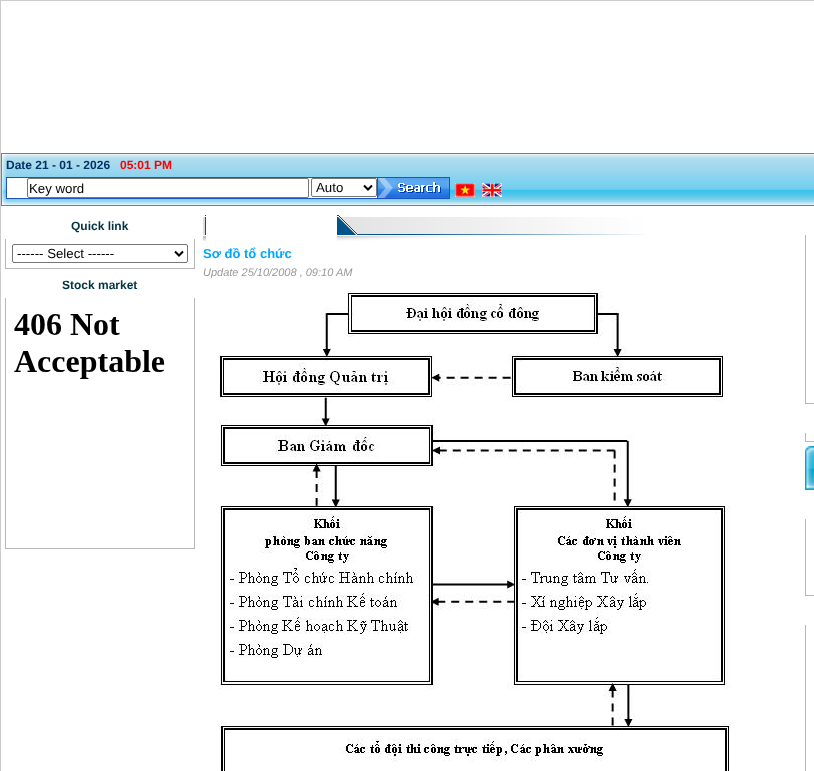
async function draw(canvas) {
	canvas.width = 814;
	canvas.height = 771;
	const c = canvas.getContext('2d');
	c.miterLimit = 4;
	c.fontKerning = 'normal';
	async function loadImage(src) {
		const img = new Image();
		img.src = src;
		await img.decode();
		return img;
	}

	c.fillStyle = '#fff';
	c.fillRect(0, 0, 814, 771);
	c.strokeStyle = '#ccc';
	c.strokeRect(0.5, 0.5, 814, 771);
	c.drawImage(await loadImage('img1.png'), 1, 153, 813, 53);
	c.drawImage(await loadImage('img2.png'), 1, 154, 6, 51);
	c.font = 'bold 12px Liberation Sans';
	c.fillStyle = '#036';
	c.fillText('Date 21 - 01 - 2026', 6, 169);
	c.fillStyle = '#f00';
	c.fillText('05:01 PM', 120, 169);
	c.fillStyle = '#fff';
	c.fillRect(7, 178, 370, 20);
	c.strokeStyle = '#1e54be';
	c.strokeRect(6.5, 177.5, 443, 21);
	c.beginPath();
	c.roundRect(27.5, 178.5, 281, 19, 1.5);
	c.strokeStyle = '#767676';
	c.stroke();
	c.font = '13.25px Liberation Sans';
	c.fillStyle = '#000';
	c.fillText('Key word', 29, 193);
	c.beginPath();
	c.roundRect(311.5, 178.5, 65, 18, 1.5);
	c.stroke();
	c.beginPath();
	c.moveTo(364, 185.5);
	c.lineTo(368, 189.5);
	c.lineTo(372, 185.5);
	c.strokeStyle = '#000';
	c.lineWidth = 2;
	c.stroke();
	c.fillText('Auto', 316, 192);
	c.drawImage(await loadImage('img3.png'), 377, 178, 72, 20);
	c.drawImage(await loadImage('img4.png'), 455, 183, 20, 14);
	c.drawImage(await loadImage('img5.png'), 482, 183, 20, 14);
	c.font = 'bold 12px Liberation Sans';
	c.fillStyle = '#013443';
	c.fillText('Quick link', 71, 230);
	for (const [x, y, w, h, color] of [
		[194, 239, 1, 30, '#b7b7b7'],
		[5, 268, 190, 1, '#b7b7b7'],
		[5, 239, 1, 30, '#b7b7b7'],
	]) {
		c.fillStyle = color;
		c.fillRect(x, y, w, h);
	}
	c.beginPath();
	c.roundRect(12.5, 244.5, 175, 18, 1.5);
	c.strokeStyle = '#767676';
	c.lineWidth = 1;
	c.stroke();
	c.beginPath();
	c.moveTo(175, 251.5);
	c.lineTo(179, 255.5);
	c.lineTo(183, 251.5);
	c.strokeStyle = '#000';
	c.lineWidth = 2;
	c.stroke();
	c.font = '13.25px Liberation Sans';
	c.fillStyle = '#000';
	c.fillText('------ Select ------', 17, 258);
	c.font = 'bold 12px Liberation Sans';
	c.fillStyle = '#013443';
	c.fillText('Stock market', 62, 289);
	for (const [x, y, w, h, color] of [
		[194, 298, 1, 251, '#b7b7b7'],
		[5, 548, 190, 1, '#b7b7b7'],
		[5, 298, 1, 251, '#b7b7b7'],
	]) {
		c.fillStyle = color;
		c.fillRect(x, y, w, h);
	}
	c.drawImage(await loadImage('img6.png'), 14, 314, 151, 65);
	c.drawImage(await loadImage('img7.png'), 203, 215, 3, 26);
	c.drawImage(await loadImage('img8.png'), 337, 215, 309, 26);
	c.font = 'bold 13px Liberation Sans';
	c.fillStyle = '#02a8fe';
	c.fillText('Sơ đồ tổ chức', 203, 258);
	c.font = 'italic 11px Liberation Sans';
	c.fillStyle = '#999';
	c.fillText('Update 25/10/2008 , 09:10 AM', 203, 276);
	c.drawImage(await loadImage('img9.png'), 219, 290, 512, 481);
	for (const [x, y, w, h, color] of [
		[805, 403, 9, 1, '#b7b7b7'],
		[805, 235, 1, 169, '#b7b7b7'],
		[805, 441, 9, 1, '#b7b7b7'],
		[805, 433, 1, 9, '#b7b7b7'],
	]) {
		c.fillStyle = color;
		c.fillRect(x, y, w, h);
	}
	c.drawImage(await loadImage('img10.png'), 805, 446, 9, 44);
	for (const [x, y, w, h, color] of [
		[805, 595, 9, 1, '#b7b7b7'],
		[805, 519, 1, 77, '#b7b7b7'],
		[805, 625, 1, 146, '#b7b7b7'],
	]) {
		c.fillStyle = color;
		c.fillRect(x, y, w, h);
	}
}

draw(document.querySelector('canvas'));
